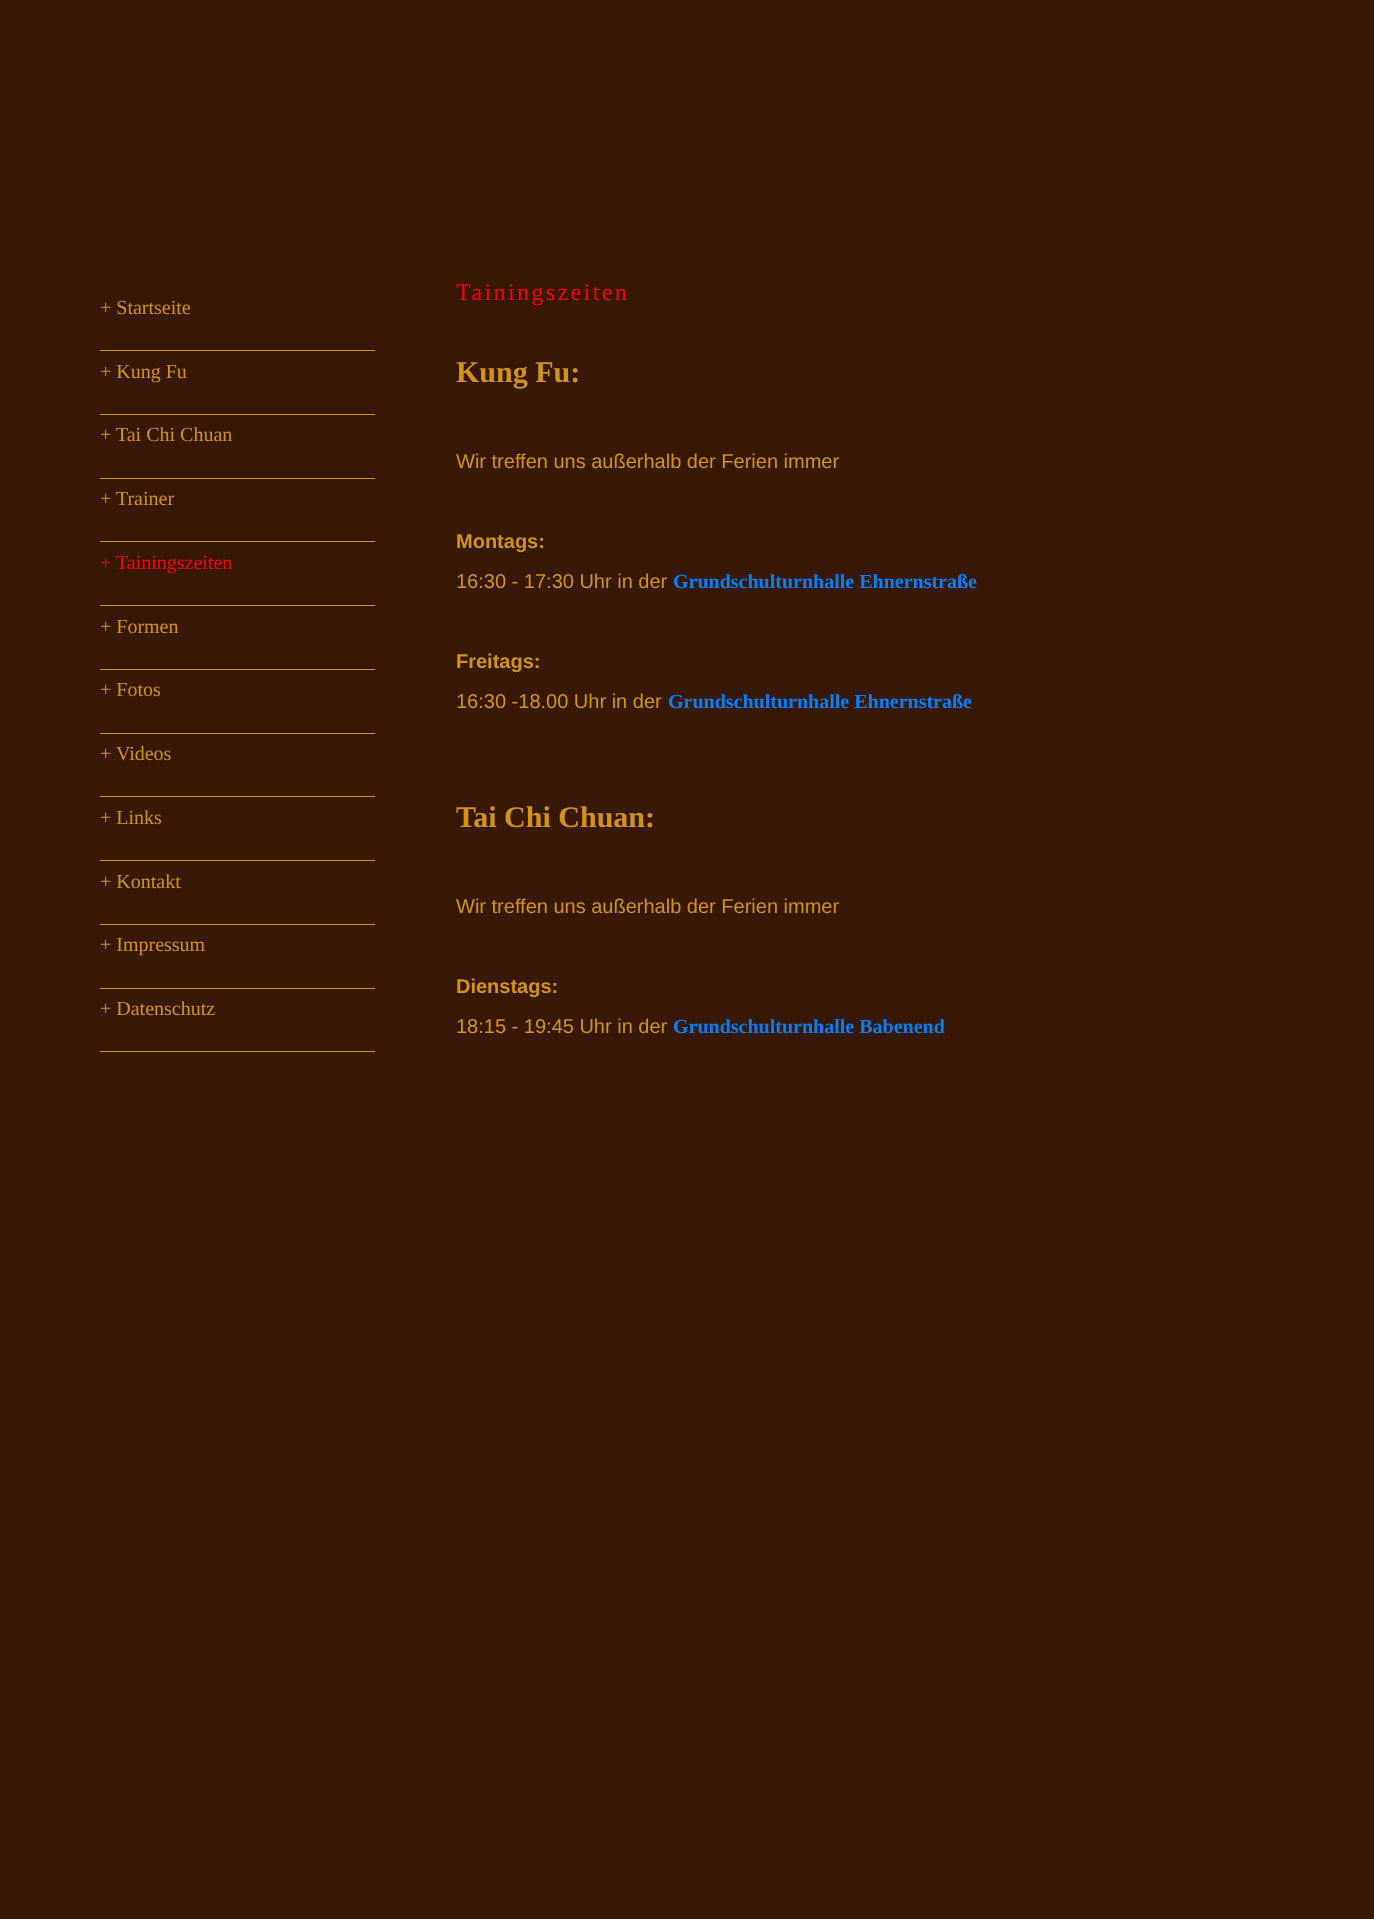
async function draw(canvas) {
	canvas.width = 1374;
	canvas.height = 1919;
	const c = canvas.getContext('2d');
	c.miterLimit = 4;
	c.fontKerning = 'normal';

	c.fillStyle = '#371804';
	c.fillRect(0, 0, 1374, 1919);
	c.fillStyle = '#d39317';
	c.fillRect(100, 350, 275, 1);
	c.font = '20px Liberation Serif';
	c.fillText('+ Startseite', 100, 314);
	c.fillRect(100, 414, 275, 1);
	c.fillText('+ Kung Fu', 100, 378);
	c.fillRect(100, 478, 275, 1);
	c.fillText('+ Tai Chi Chuan', 100, 441);
	c.fillRect(100, 541, 275, 1);
	c.fillText('+ Trainer', 100, 505);
	c.fillRect(100, 605, 275, 1);
	c.fillStyle = '#f00';
	c.fillText('+ Tainingszeiten', 100, 569);
	c.fillStyle = '#d39317';
	c.fillRect(100, 669, 275, 1);
	c.fillText('+ Formen', 100, 633);
	c.fillRect(100, 733, 275, 1);
	c.fillText('+ Fotos', 100, 696);
	c.fillRect(100, 796, 275, 1);
	c.fillText('+ Videos', 100, 760);
	c.fillRect(100, 860, 275, 1);
	c.fillText('+ Links', 100, 824);
	c.fillRect(100, 924, 275, 1);
	c.fillText('+ Kontakt', 100, 888);
	c.fillRect(100, 988, 275, 1);
	c.fillText('+ Impressum', 100, 951);
	c.fillRect(100, 1051, 275, 1);
	c.fillText('+ Datenschutz', 100, 1015);
	c.letterSpacing = '2.4px';
	c.font = '24px Liberation Serif';
	c.fillStyle = '#f00';
	c.fillText('Tainingszeiten', 456, 300);
	c.letterSpacing = '0px';
	c.font = 'bold 30px Liberation Serif';
	c.fillStyle = '#d39317';
	c.fillText('Kung Fu:', 456, 382);
	c.font = '20px Liberation Sans';
	c.fillText('Wir treffen uns außerhalb der Ferien immer', 456, 468);
	c.font = 'bold 20px Liberation Sans';
	c.fillText('Montags:', 456, 548);
	c.font = '20px Liberation Sans';
	c.fillText('16:30 - 17:30 Uhr in der', 456, 588);
	c.font = 'bold 20px Liberation Serif';
	c.fillStyle = '#0080ff';
	c.fillText('Grundschulturnhalle Ehnernstraße', 673, 588);
	c.font = 'bold 20px Liberation Sans';
	c.fillStyle = '#d39317';
	c.fillText('Freitags:', 456, 668);
	c.font = '20px Liberation Sans';
	c.fillText('16:30 -18.00 Uhr in der', 456, 708);
	c.font = 'bold 20px Liberation Serif';
	c.fillStyle = '#0080ff';
	c.fillText('Grundschulturnhalle Ehnernstraße', 668, 708);
	c.font = 'bold 30px Liberation Serif';
	c.fillStyle = '#d39317';
	c.fillText('Tai Chi Chuan:', 456, 827);
	c.font = '20px Liberation Sans';
	c.fillText('Wir treffen uns außerhalb der Ferien immer', 456, 913);
	c.font = 'bold 20px Liberation Sans';
	c.fillText('Dienstags:', 456, 993);
	c.font = '20px Liberation Sans';
	c.fillText('18:15 - 19:45 Uhr in der', 456, 1033);
	c.font = 'bold 20px Liberation Serif';
	c.fillStyle = '#0080ff';
	c.fillText('Grundschulturnhalle Babenend', 673, 1033);
}

draw(document.querySelector('canvas'));
